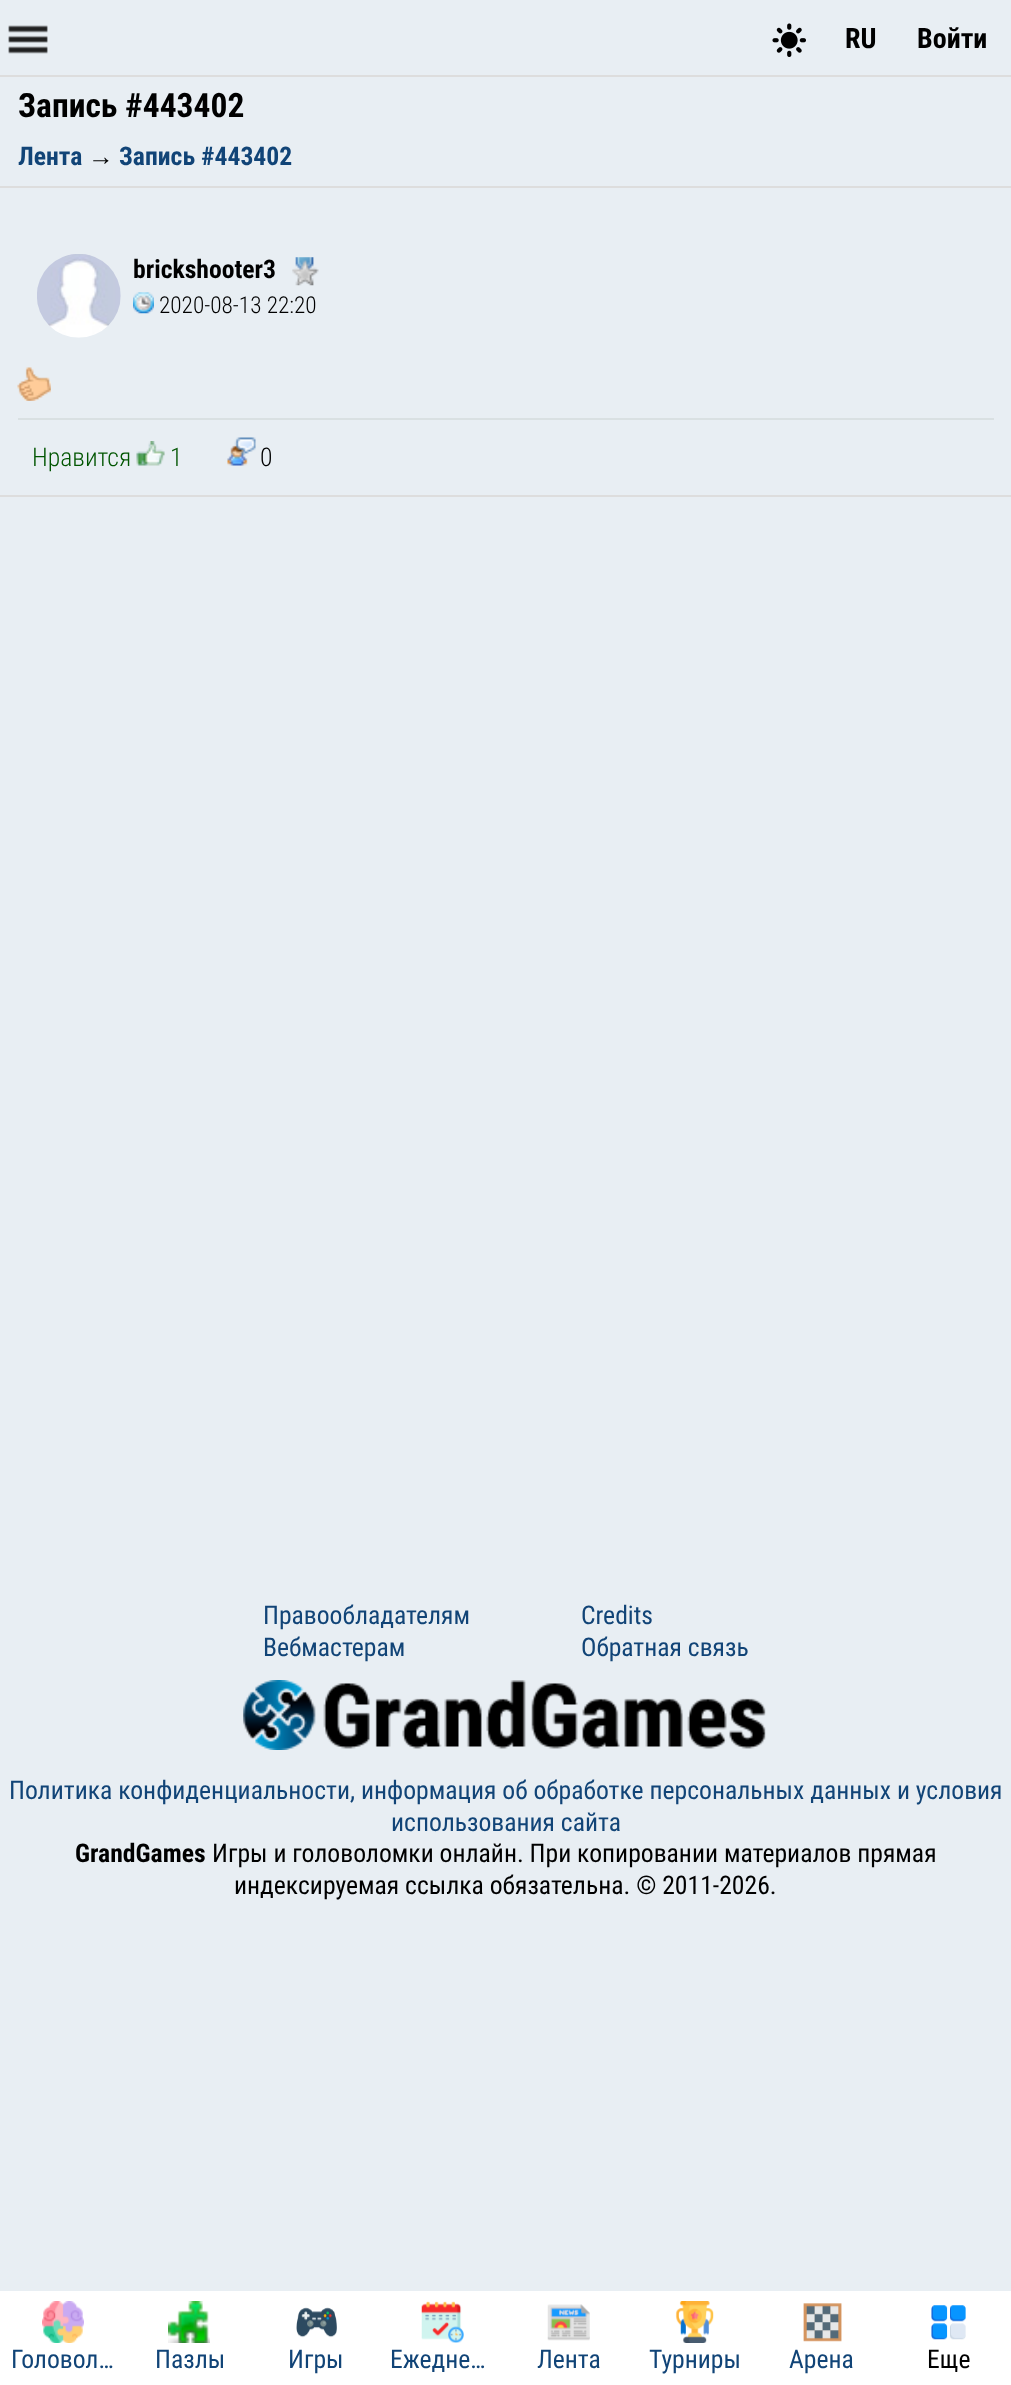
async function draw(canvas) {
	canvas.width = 1011;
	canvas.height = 2385;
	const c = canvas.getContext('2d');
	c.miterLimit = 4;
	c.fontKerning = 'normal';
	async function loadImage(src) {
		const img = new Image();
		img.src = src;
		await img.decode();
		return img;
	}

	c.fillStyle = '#e8eef3';
	c.fillRect(0, 0, 1011, 2385);
	c.fillStyle = '#ddd';
	c.fillRect(0, 75, 1011, 2);
	c.drawImage(await loadImage('img1.png'), 8, 25, 40, 29);
	c.drawImage(await loadImage('img2.png'), 772, 23, 34, 34);
	c.font = 'bold 28px Roboto Condensed';
	c.fillStyle = '#000';
	c.fillText('RU', 845, 48);
	c.fillText('Войти', 917, 48);
	c.fillStyle = '#fff';
	c.fillRect(0, 2291, 1011, 94);
	c.drawImage(await loadImage('img3.png'), 42, 2301, 42, 42);
	c.font = '25.65px Roboto Condensed';
	c.fillStyle = '#147';
	c.fillText('Головол…', 11, 2368);
	c.drawImage(await loadImage('img4.png'), 168, 2301, 42, 42);
	c.fillText('Пазлы', 155, 2368);
	c.drawImage(await loadImage('img5.png'), 296, 2307, 41, 31);
	c.fillText('Игры', 288, 2368);
	c.drawImage(await loadImage('img6.png'), 421, 2301, 43, 42);
	c.fillText('Ежедне…', 390, 2368);
	c.drawImage(await loadImage('img7.png'), 547, 2304, 43, 37);
	c.fillText('Лента', 537, 2368);
	c.drawImage(await loadImage('img8.png'), 675, 2301, 39, 42);
	c.fillText('Турниры', 649, 2368);
	c.drawImage(await loadImage('img9.png'), 803, 2303, 39, 39);
	c.fillText('Арена', 789, 2368);
	c.drawImage(await loadImage('img10.png'), 931, 2305, 35, 35);
	c.fillStyle = '#000';
	c.fillText('Еще', 927, 2368);
	c.fillStyle = '#ddd';
	c.fillRect(0, 186, 1011, 2);
	c.font = 'bold 33.5px Roboto Condensed';
	c.fillStyle = '#000';
	c.fillText('Запись #443402', 18, 117);
	c.font = 'bold 25.65px Roboto Condensed';
	c.fillStyle = '#147';
	c.fillText('Лента', 18, 165);
	c.font = 'bold 25.65px Liberation Sans';
	c.fillStyle = '#000';
	c.fillText('→', 88, 165);
	c.font = 'bold 25.65px Roboto Condensed';
	c.fillStyle = '#147';
	c.fillText('Запись #443402', 119, 165);
	c.fillStyle = '#ddd';
	c.fillRect(0, 495, 1011, 2);
	c.drawImage(await loadImage('img11.png'), 37, 254, 84, 84);
	c.fillStyle = '#000';
	c.fillText('brickshooter3', 133, 278);
	c.drawImage(await loadImage('img12.png'), 292, 257, 27, 29);
	c.drawImage(await loadImage('img13.png'), 133, 292, 21, 22);
	c.font = '300 23.25px Roboto Condensed';
	c.fillText('2020-08-13 22:20', 159, 313);
	c.drawImage(await loadImage('img14.png'), 17, 367, 34, 34);
	c.fillStyle = '#d9e0e2';
	c.fillRect(18, 418, 976, 2);
	c.font = '300 25.65px Roboto Condensed';
	c.fillStyle = '#050';
	c.fillText('Нравится', 32, 466);
	c.drawImage(await loadImage('img15.png'), 136, 441, 29, 25);
	c.fillText('1', 170, 466);
	c.drawImage(await loadImage('img16.png'), 227, 437, 29, 29);
	c.fillStyle = '#000';
	c.fillText('0', 260, 466);
	c.font = '25.65px Roboto Condensed';
	c.fillStyle = '#147';
	for (const [text, x, y] of [
		['Правообладателям', 263, 1624],
		['Вебмастерам', 263, 1656],
		['Credits', 581, 1624],
		['Обратная связь', 581, 1656],
	]) {
		c.fillText(text, x, y);
	}
	c.drawImage(await loadImage('img17.png'), 243, 1680, 523, 70);
	c.fillText('Политика конфиденциальности, информация об обработке персональных данных и условия', 9, 1799);
	c.fillText('использования сайта', 391, 1831);
	c.font = 'bold 25.65px Roboto Condensed';
	c.fillStyle = '#000';
	c.fillText('GrandGames', 75, 1862);
	c.font = '25.65px Roboto Condensed';
	c.fillText('Игры и головоломки онлайн. При копировании материалов прямая', 212, 1862);
	c.fillText('индексируемая ссылка обязательна. © 2011-2026.', 234, 1894);
}

draw(document.querySelector('canvas'));
